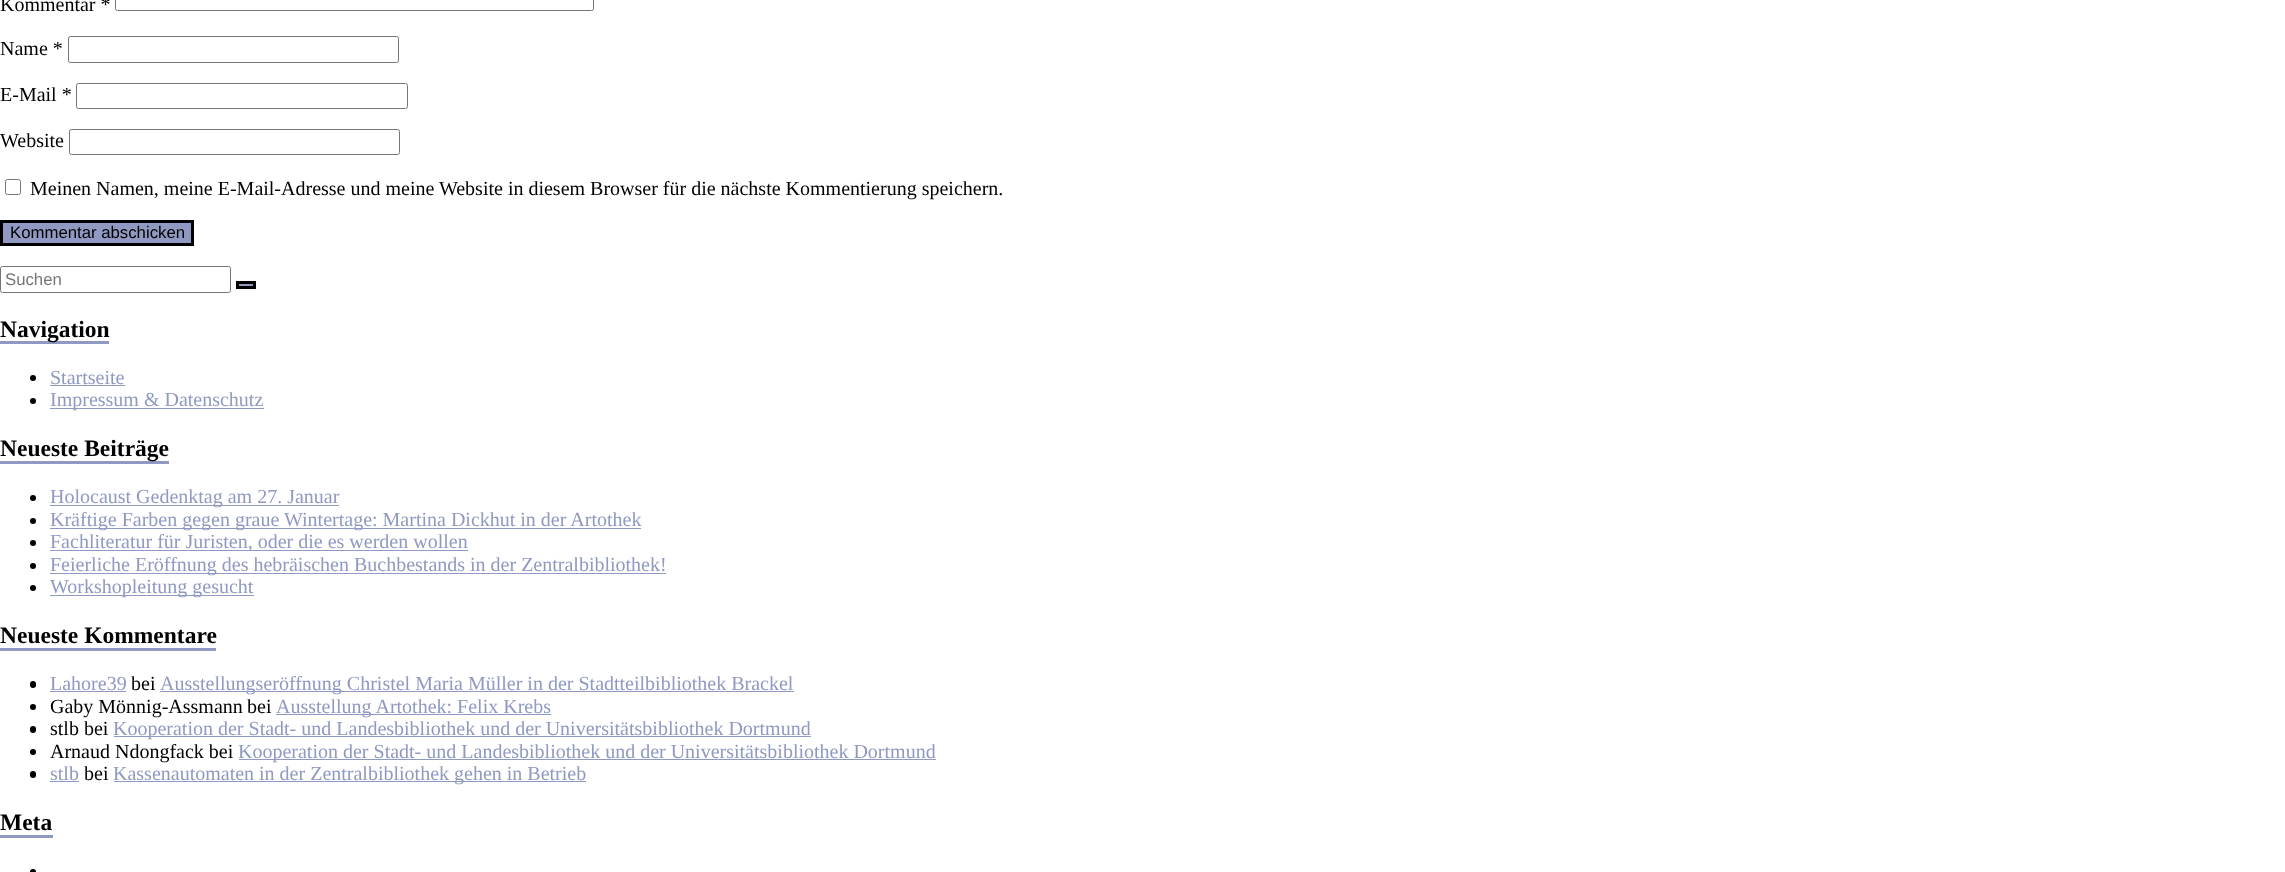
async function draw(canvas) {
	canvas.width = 2285;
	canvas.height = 872;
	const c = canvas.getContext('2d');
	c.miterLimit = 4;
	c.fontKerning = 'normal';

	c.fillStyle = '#fff';
	c.fillRect(0, 0, 2285, 872);
	c.font = '20px Liberation Serif';
	c.fillStyle = '#000';
	c.fillText('Kommentar *', 0, 11);
	c.beginPath();
	c.roundRect(115.5, -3.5, 478, 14, 2);
	c.strokeStyle = '#767676';
	c.stroke();
	c.fillText('Name *', 0, 55);
	c.beginPath();
	c.roundRect(68.5, 36.5, 330, 26, 2);
	c.stroke();
	c.fillText('E-Mail *', 0, 101);
	c.beginPath();
	c.roundRect(76.5, 83.5, 331, 25, 2);
	c.stroke();
	c.fillText('Website', 0, 147);
	c.beginPath();
	c.roundRect(69.5, 129.5, 330, 25, 2);
	c.stroke();
	c.beginPath();
	c.roundRect(5.5, 179.5, 15, 15, 2);
	c.stroke();
	c.fillText('Meinen Namen, meine E-Mail-Adresse und meine Website in diesem Browser für die nächste Kommentierung speichern.', 30, 195);
	c.fillStyle = '#8f99c1';
	c.beginPath();
	c.rect(1.5, 221.5, 191, 23);
	c.fill();
	c.strokeStyle = '#000';
	c.lineWidth = 3;
	c.stroke();
	c.font = '16.75px Liberation Sans';
	c.fillStyle = '#000';
	c.fillText('Kommentar abschicken', 10, 238);
	c.beginPath();
	c.roundRect(0.5, 266.5, 230, 26, 2);
	c.strokeStyle = '#767676';
	c.lineWidth = 1;
	c.stroke();
	c.fillStyle = '#757575';
	c.fillText('Suchen', 5, 285);
	c.fillStyle = '#8f99c1';
	c.beginPath();
	c.rect(237.5, 282.5, 17, 5);
	c.fill();
	c.strokeStyle = '#000';
	c.lineWidth = 3;
	c.stroke();
	c.fillRect(0, 341, 109, 3);
	c.font = 'bold 23.5px Liberation Serif';
	c.fillStyle = '#000';
	c.fillText('Navigation', 0, 337);
	c.beginPath();
	c.arc(33, 378, 3, 0, 2 * Math.PI);
	c.fill();
	c.font = '20px Liberation Serif';
	c.fillStyle = '#8f99c1';
	c.fillText('Startseite', 50, 384);
	c.fillRect(50, 385, 75, 1);
	c.fillStyle = '#000';
	c.beginPath();
	c.arc(33, 401, 3, 0, 2 * Math.PI);
	c.fill();
	c.fillStyle = '#8f99c1';
	c.fillRect(50, 408, 214, 1);
	c.fillText('Impressum & Datenschutz', 50, 406);
	c.fillRect(0, 461, 169, 3);
	c.font = 'bold 23.5px Liberation Serif';
	c.fillStyle = '#000';
	c.fillText('Neueste Beiträge', 0, 456);
	c.beginPath();
	c.arc(33, 498, 3, 0, 2 * Math.PI);
	c.fill();
	c.fillStyle = '#8f99c1';
	c.fillRect(50, 505, 289, 1);
	c.font = '20px Liberation Serif';
	c.fillText('Holocaust Gedenktag am 27. Januar', 50, 503);
	c.fillStyle = '#000';
	c.beginPath();
	c.arc(33, 521, 3, 0, 2 * Math.PI);
	c.fill();
	c.fillStyle = '#8f99c1';
	c.fillRect(50, 528, 591, 1);
	c.fillText('Kräftige Farben gegen graue Wintertage: Martina Dickhut in der Artothek', 50, 526);
	c.fillStyle = '#000';
	c.beginPath();
	c.arc(33, 543, 3, 0, 2 * Math.PI);
	c.fill();
	c.fillStyle = '#8f99c1';
	c.fillRect(50, 550, 418, 1);
	c.fillText('Fachliteratur für Juristen, oder die es werden wollen', 50, 548);
	c.fillStyle = '#000';
	c.beginPath();
	c.arc(33, 566, 3, 0, 2 * Math.PI);
	c.fill();
	c.fillStyle = '#8f99c1';
	c.fillRect(50, 573, 616, 1);
	c.fillText('Feierliche Eröffnung des hebräischen Buchbestands in der Zentralbibliothek!', 50, 571);
	c.fillStyle = '#000';
	c.beginPath();
	c.arc(33, 588, 3, 0, 2 * Math.PI);
	c.fill();
	c.fillStyle = '#8f99c1';
	c.fillRect(50, 595, 204, 1);
	c.fillText('Workshopleitung gesucht', 50, 593);
	c.font = 'bold 23.5px Liberation Serif';
	c.fillStyle = '#000';
	c.fillText('Neueste Kommentare', 0, 643);
	c.fillStyle = '#8f99c1';
	c.fillRect(0, 648, 216, 3);
	c.fillStyle = '#000';
	c.beginPath();
	c.roundRect(30, 681, 6, 7, 3);
	c.fill();
	c.font = '20px Liberation Serif';
	c.fillStyle = '#8f99c1';
	c.fillText('Lahore39', 50, 690);
	c.fillRect(50, 691, 76, 1);
	c.fillStyle = '#000';
	c.fillText('bei', 131, 690);
	c.fillStyle = '#8f99c1';
	c.fillRect(160, 691, 634, 1);
	c.fillText('Ausstellungseröffnung Christel Maria Müller in der Stadtteilbibliothek Brackel', 160, 690);
	c.fillStyle = '#000';
	c.beginPath();
	c.arc(33, 707, 3, 0, 2 * Math.PI);
	c.fill();
	c.fillText('Gaby Mönnig-Assmann', 50, 713);
	c.fillText('bei', 247, 713);
	c.fillStyle = '#8f99c1';
	c.fillRect(276, 714, 275, 1);
	c.fillText('Ausstellung Artothek: Felix Krebs', 276, 713);
	c.fillStyle = '#000';
	c.beginPath();
	c.roundRect(30, 726, 6, 7, 3);
	c.fill();
	c.fillText('stlb bei', 50, 735);
	c.fillStyle = '#8f99c1';
	c.fillRect(114, 736, 697, 1);
	c.fillText('Kooperation der Stadt- und Landesbibliothek und der Universitätsbibliothek Dortmund', 113, 735);
	c.fillStyle = '#000';
	c.beginPath();
	c.arc(33, 752, 3, 0, 2 * Math.PI);
	c.fill();
	c.fillText('Arnaud Ndongfack bei', 50, 758);
	c.fillStyle = '#8f99c1';
	c.fillRect(239, 759, 697, 1);
	c.fillText('Kooperation der Stadt- und Landesbibliothek und der Universitätsbibliothek Dortmund', 238, 758);
	c.fillStyle = '#000';
	c.beginPath();
	c.roundRect(30, 771, 6, 7, 3);
	c.fill();
	c.fillStyle = '#8f99c1';
	c.fillText('stlb', 50, 780);
	c.fillRect(50, 781, 29, 1);
	c.fillStyle = '#000';
	c.fillText('bei', 84, 780);
	c.fillStyle = '#8f99c1';
	c.fillRect(114, 781, 472, 1);
	c.fillText('Kassenautomaten in der Zentralbibliothek gehen in Betrieb', 113, 780);
	c.font = 'bold 23.5px Liberation Serif';
	c.fillStyle = '#000';
	c.fillText('Meta', 0, 830);
	c.fillStyle = '#8f99c1';
	c.fillRect(0, 835, 53, 3);
	c.fillStyle = '#000';
	c.beginPath();
	c.arc(33, 872, 3, 0, 2 * Math.PI);
	c.fill();
}

draw(document.querySelector('canvas'));
